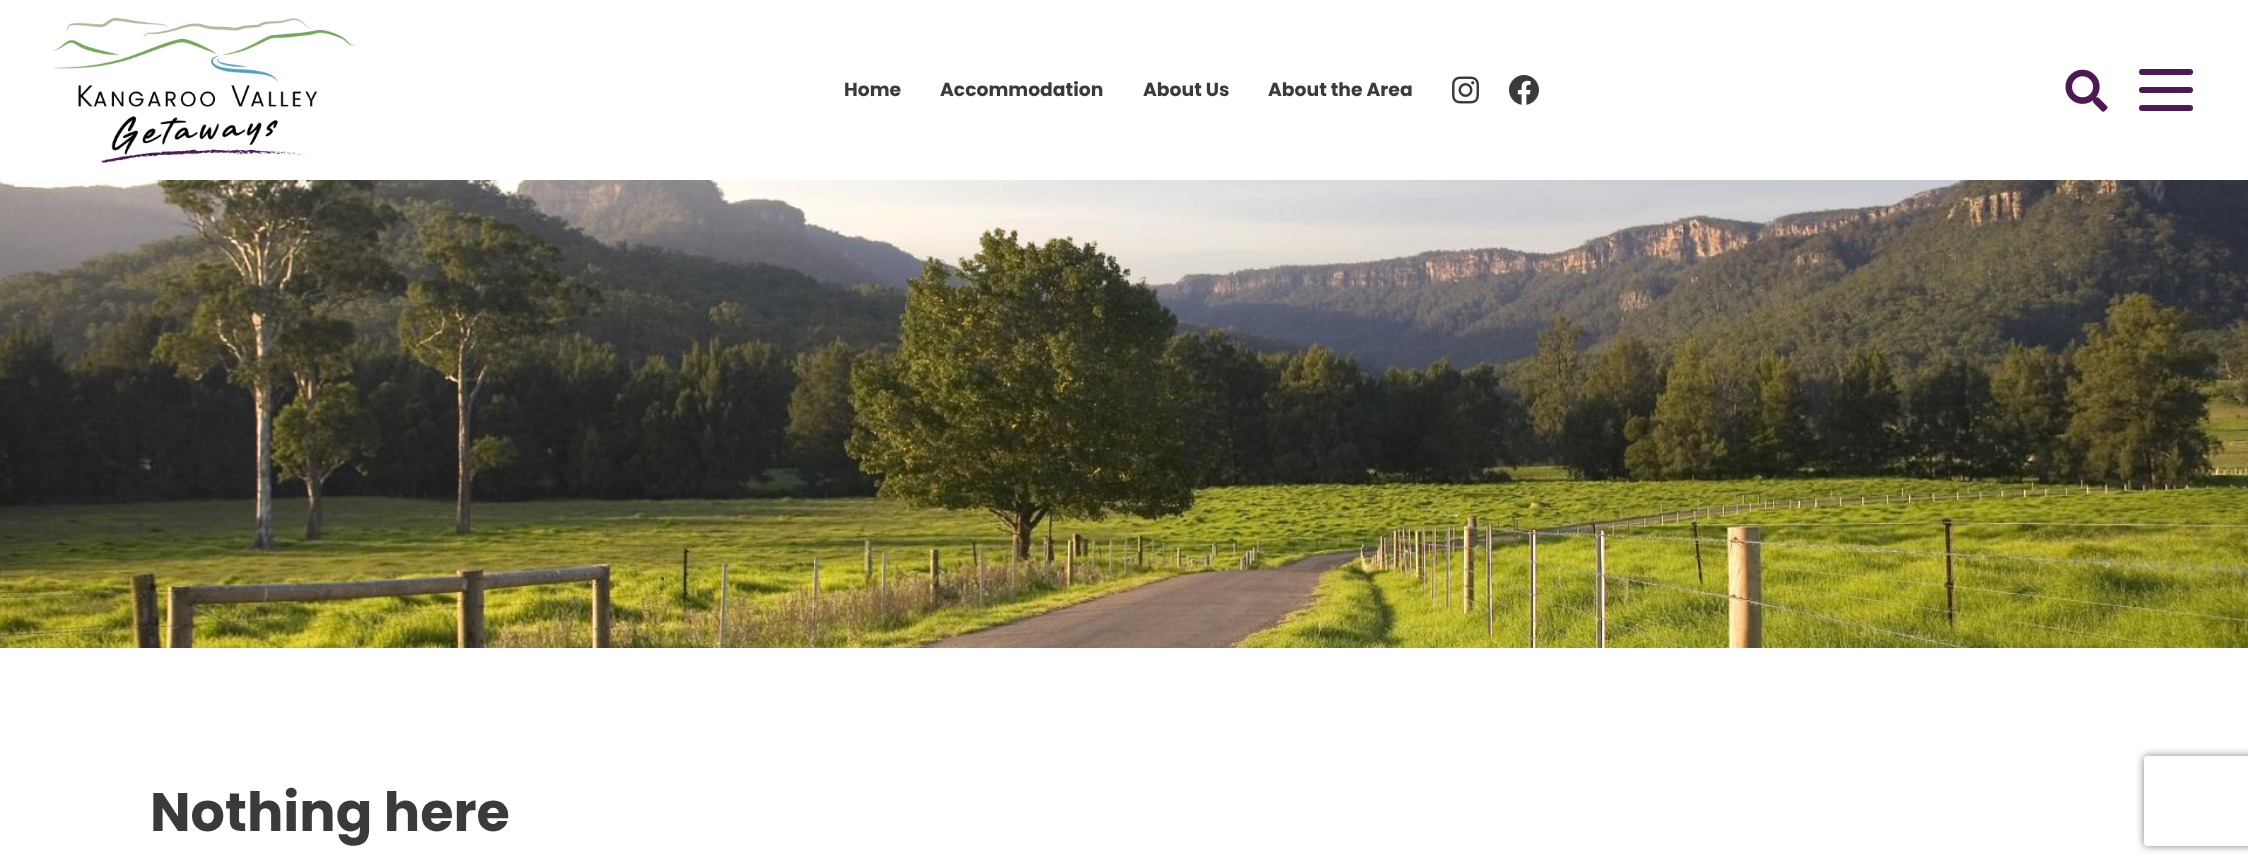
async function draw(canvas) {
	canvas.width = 2248;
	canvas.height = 867;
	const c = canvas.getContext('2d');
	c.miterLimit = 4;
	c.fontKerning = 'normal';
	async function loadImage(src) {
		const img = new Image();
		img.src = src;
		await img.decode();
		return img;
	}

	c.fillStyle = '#fff';
	c.fillRect(0, 0, 2248, 867);
	c.drawImage(await loadImage('img1.png'), 53, 18, 302, 145);
	c.font = 'bold 18.75px Poppins';
	c.fillStyle = '#3a3a3a';
	for (const [text, x, y] of [
		['Home', 844, 96],
		['Accommodation', 940, 96],
		['About Us', 1143, 96],
		['About the Area', 1268, 96],
	]) {
		c.fillText(text, x, y);
	}
	c.drawImage(await loadImage('img2.png'), 1452, 76, 27, 28);
	c.drawImage(await loadImage('img3.png'), 1509, 75, 30, 30);
	c.drawImage(await loadImage('img4.png'), 2065, 69, 43, 43);
	c.fillStyle = '#4d1953';
	c.beginPath();
	c.roundRect(2139, 69, 54, 6, 3);
	c.fill();
	c.beginPath();
	c.roundRect(2139, 87, 54, 6, 3);
	c.fill();
	c.beginPath();
	c.roundRect(2139, 105, 54, 6, 3);
	c.fill();
	c.drawImage(await loadImage('img5.png'), 0, 180, 2248, 468);
	c.font = 'bold 54px Poppins';
	c.fillStyle = '#3a3a3a';
	c.fillText('Nothing here', 150, 831);
	c.save();
	c.beginPath();
	c.moveTo(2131, 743);
	c.lineTo(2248, 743);
	c.lineTo(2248, 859);
	c.lineTo(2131, 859);
	c.closePath();
	c.moveTo(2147, 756);
	c.lineTo(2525, 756);
	c.bezierCurveTo(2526.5, 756, 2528, 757.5, 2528, 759);
	c.lineTo(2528, 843);
	c.bezierCurveTo(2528, 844.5, 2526.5, 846, 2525, 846);
	c.lineTo(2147, 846);
	c.bezierCurveTo(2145.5, 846, 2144, 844.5, 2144, 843);
	c.lineTo(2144, 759);
	c.bezierCurveTo(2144, 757.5, 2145.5, 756, 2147, 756);
	c.closePath();
	c.clip('evenodd');
	c.fillStyle = '#808080';
	c.filter = 'blur(4px)';
	c.beginPath();
	c.roundRect(2144, 756, 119, 90, 3);
	c.fill();
	c.filter = 'none';
	c.restore();
}

draw(document.querySelector('canvas'));
